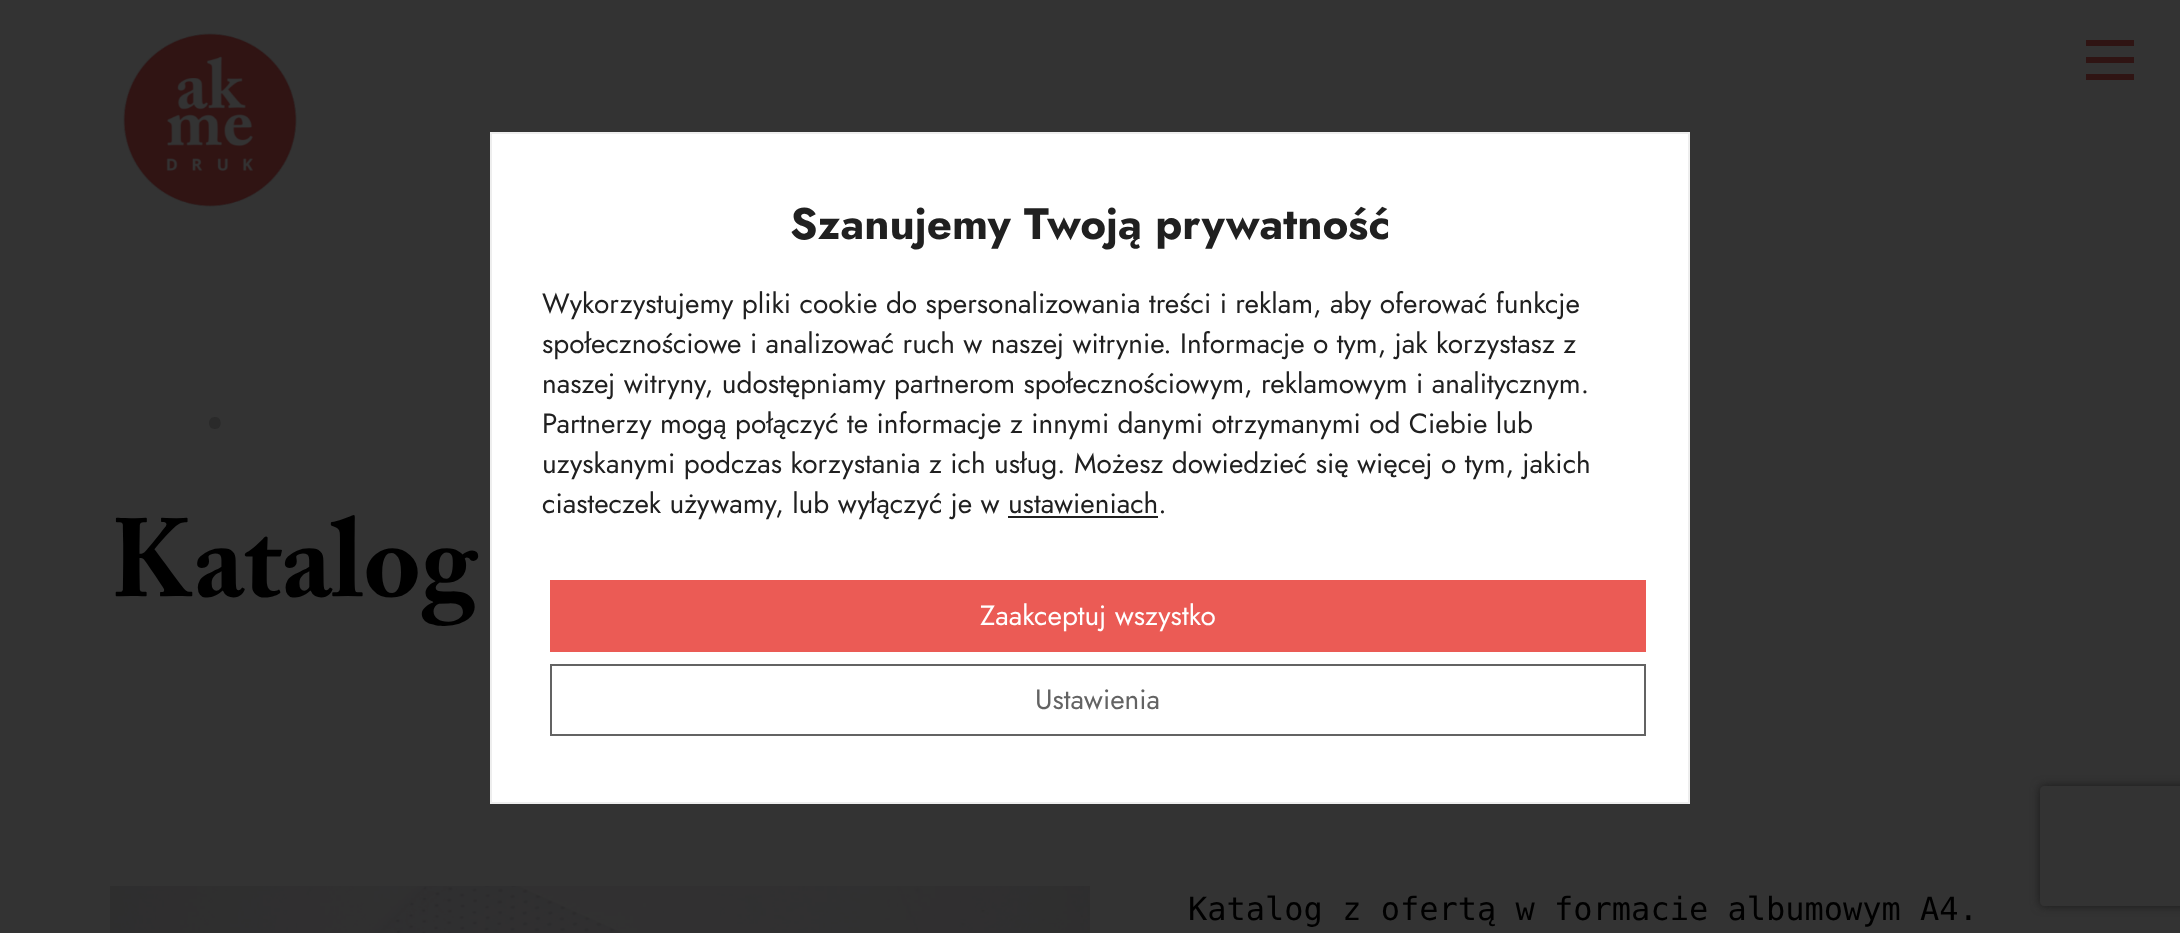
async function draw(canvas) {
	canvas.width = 2180;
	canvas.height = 933;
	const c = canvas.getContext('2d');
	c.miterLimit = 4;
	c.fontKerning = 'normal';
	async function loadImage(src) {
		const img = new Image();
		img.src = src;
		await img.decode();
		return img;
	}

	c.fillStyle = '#333';
	c.fillRect(0, 0, 2180, 933);
	c.drawImage(await loadImage('img1.png'), 123, 33, 174, 174);
	for (const [x, y, w, h, color] of [
		[2086, 40, 48, 6, '#2f1413'],
		[2086, 57, 48, 6, '#2f1413'],
		[2086, 74, 48, 6, '#2f1413'],
	]) {
		c.fillStyle = color;
		c.fillRect(x, y, w, h);
	}
	c.fillStyle = '#fff';
	c.beginPath();
	c.rect(491, 133, 1198, 670);
	c.fill();
	c.strokeStyle = '#eee';
	c.lineWidth = 2;
	c.stroke();
	c.font = 'bold 44px Jost';
	c.fillStyle = '#202020';
	c.fillText('Szanujemy Twoją prywatność', 790, 239);
	c.font = '28px Jost';
	for (const [text, x, y] of [
		['Wykorzystujemy pliki cookie do spersonalizowania treści i reklam, aby oferować funkcje', 542, 313],
		['społecznościowe i analizować ruch w naszej witrynie. Informacje o tym, jak korzystasz z', 542, 353],
		['naszej witryny, udostępniamy partnerom społecznościowym, reklamowym i analitycznym.', 542, 393],
		['Partnerzy mogą połączyć te informacje z innymi danymi otrzymanymi od Ciebie lub', 542, 433],
		['uzyskanymi podczas korzystania z ich usług. Możesz dowiedzieć się więcej o tym, jakich', 542, 473],
		['ciasteczek używamy, lub wyłączyć je w ustawieniach.', 542, 513],
	]) {
		c.fillText(text, x, y);
	}
	c.fillRect(1008, 516, 150, 2);
	c.fillStyle = '#eb5b55';
	c.fillRect(550, 580, 1096, 72);
	c.fillStyle = '#fff';
	c.fillText('Zaakceptuj wszystko', 980, 625);
	c.strokeStyle = '#636363';
	c.strokeRect(551, 665, 1094, 70);
	c.fillStyle = '#636363';
	c.fillText('Ustawienia', 1035, 709);
	c.fillStyle = '#2a2a2a';
	c.beginPath();
	c.moveTo(215, 429);
	c.bezierCurveTo(207, 429, 207, 417, 215, 417);
	c.bezierCurveTo(222.5, 417, 222.5, 429, 215, 429);
	c.closePath();
	c.fill();
	c.font = 'bold 110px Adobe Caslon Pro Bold';
	c.fillStyle = '#000';
	c.fillText('Katalog', 110, 596);
	c.drawImage(await loadImage('img2.png'), 110, 886, 980, 47);
	c.font = '32px DejaVu Sans Mono';
	c.fillText('Katalog z ofertą w formacie albumowym A4.', 1188, 920);
	c.save();
	c.beginPath();
	c.moveTo(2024, 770);
	c.lineTo(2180, 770);
	c.lineTo(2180, 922);
	c.lineTo(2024, 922);
	c.closePath();
	c.moveTo(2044, 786);
	c.lineTo(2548, 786);
	c.bezierCurveTo(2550, 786, 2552, 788, 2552, 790);
	c.lineTo(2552, 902);
	c.bezierCurveTo(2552, 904, 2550, 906, 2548, 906);
	c.lineTo(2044, 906);
	c.bezierCurveTo(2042, 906, 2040, 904, 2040, 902);
	c.lineTo(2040, 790);
	c.bezierCurveTo(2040, 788, 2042, 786, 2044, 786);
	c.closePath();
	c.clip('evenodd');
	c.fillStyle = '#1a1a1a';
	c.filter = 'blur(5px)';
	c.beginPath();
	c.roundRect(2040, 786, 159, 120, 4);
	c.fill();
	c.filter = 'none';
	c.restore();
}

draw(document.querySelector('canvas'));
